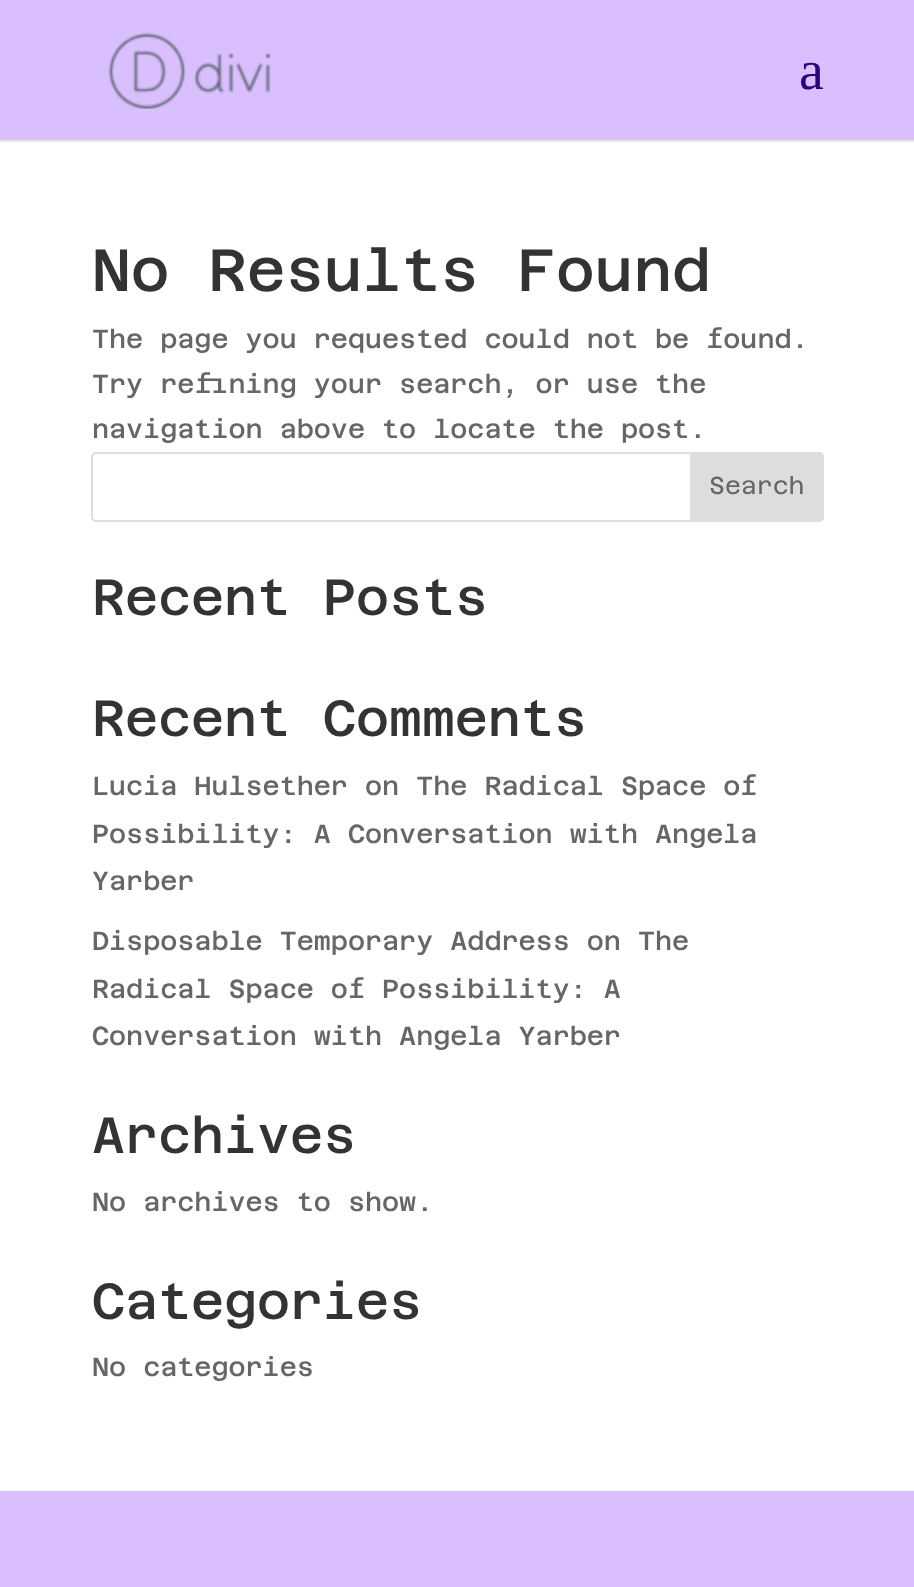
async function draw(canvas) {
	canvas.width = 914;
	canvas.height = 1587;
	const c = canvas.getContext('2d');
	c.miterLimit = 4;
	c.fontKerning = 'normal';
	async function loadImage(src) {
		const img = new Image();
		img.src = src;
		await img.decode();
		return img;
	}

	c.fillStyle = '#dabfff';
	c.fillRect(0, 0, 914, 1587);
	c.fillStyle = '#e6e6e6';
	c.fillRect(0, 140, 914, 2);
	c.drawImage(await loadImage('img1.png'), 108, 32, 163, 77);
	c.font = '56px Liberation Serif';
	c.fillStyle = '#26067f';
	c.fillText('a', 799, 89);
	c.fillStyle = '#fff';
	c.fillRect(0, 142, 914, 1349);
	c.font = '100 59.5px Azeret Mono';
	c.fillStyle = '#333';
	c.fillText('No Results Found', 92, 291);
	c.font = '100 26.25px Azeret Mono';
	c.fillStyle = '#666';
	for (const [text, x, y] of [
		['The page you requested could not be found.', 92, 348],
		['Try refining your search, or use the', 92, 393],
		['navigation above to locate the post.', 92, 438],
	]) {
		c.fillText(text, x, y);
	}
	c.beginPath();
	c.roundRect(92, 453, 731, 68, 4);
	c.strokeStyle = '#ddd';
	c.lineWidth = 2;
	c.stroke();
	c.fillStyle = '#ddd';
	c.beginPath();
	c.roundRect(691, 453, 132, 68, [0, 4, 4, 0]);
	c.fill();
	c.stroke();
	c.font = '100 24.5px "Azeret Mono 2"';
	c.fillStyle = '#666';
	c.fillText('Search', 709, 494);
	c.font = '100 50.75px Azeret Mono';
	c.fillStyle = '#333';
	c.fillText('Recent Posts', 92, 615);
	c.fillText('Recent Comments', 92, 736);
	c.font = '100 26.25px Azeret Mono';
	c.fillStyle = '#666';
	for (const [text, x, y] of [
		['Lucia Hulsether on The Radical Space of', 92, 795],
		['Possibility: A Conversation with Angela', 92, 843],
		['Yarber', 92, 890],
		['Disposable Temporary Address on The', 92, 950],
		['Radical Space of Possibility: A', 92, 998],
		['Conversation with Angela Yarber', 92, 1045],
	]) {
		c.fillText(text, x, y);
	}
	c.font = '100 50.75px Azeret Mono';
	c.fillStyle = '#333';
	c.fillText('Archives', 92, 1153);
	c.font = '100 26.25px Azeret Mono';
	c.fillStyle = '#666';
	c.fillText('No archives to show.', 92, 1211);
	c.font = '100 50.75px Azeret Mono';
	c.fillStyle = '#333';
	c.fillText('Categories', 92, 1319);
	c.font = '100 26.25px Azeret Mono';
	c.fillStyle = '#666';
	c.fillText('No categories', 92, 1376);
}

draw(document.querySelector('canvas'));
